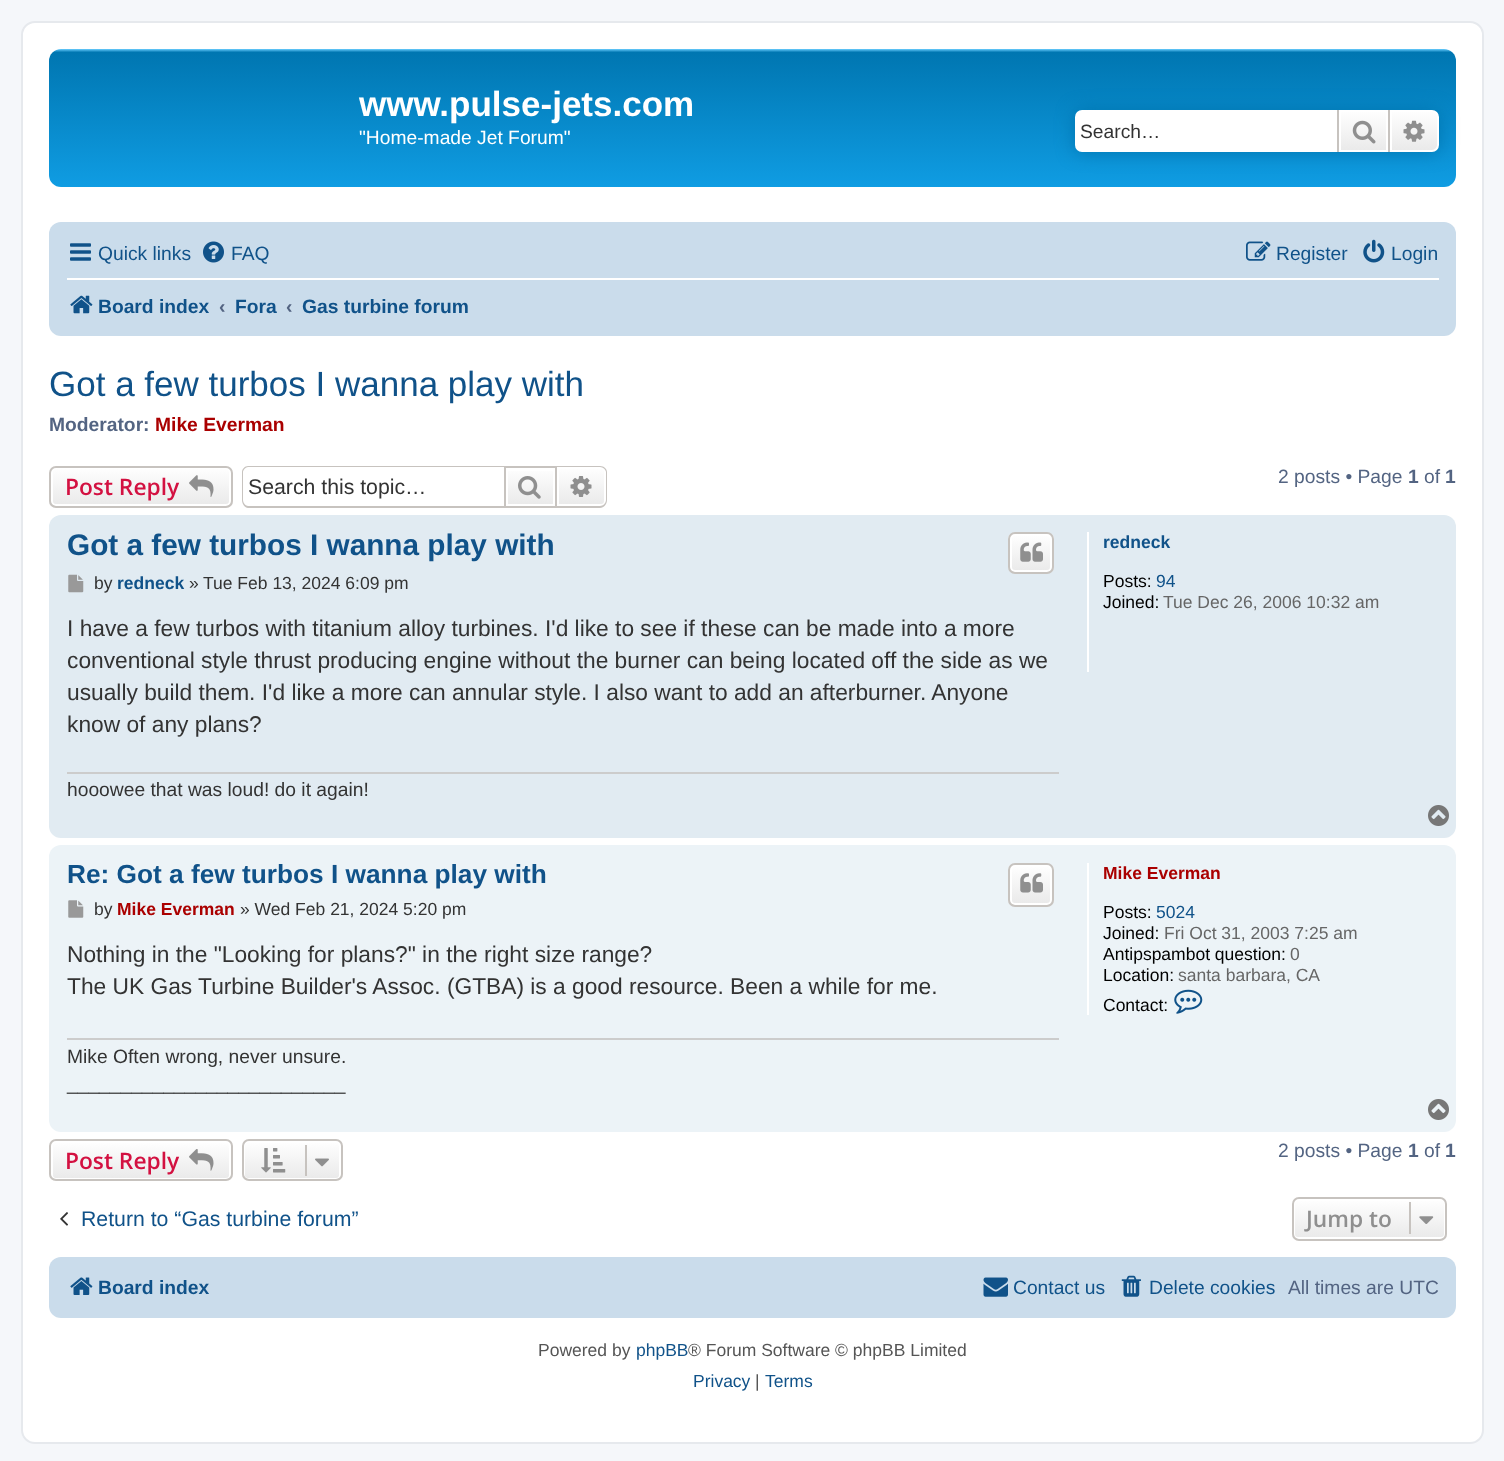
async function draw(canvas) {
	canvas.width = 1504;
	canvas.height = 1461;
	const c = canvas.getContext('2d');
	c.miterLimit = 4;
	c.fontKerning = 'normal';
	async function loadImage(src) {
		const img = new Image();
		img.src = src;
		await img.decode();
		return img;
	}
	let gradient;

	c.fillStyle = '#f5f7fa';
	c.fillRect(0, 0, 1504, 1461);
	c.fillStyle = '#fff';
	c.beginPath();
	c.roundRect(22, 22, 1461, 1421, 13);
	c.fill();
	c.strokeStyle = '#e6e9ed';
	c.lineWidth = 2;
	c.stroke();
	gradient = c.createLinearGradient(753, 49, 753, 210);
	gradient.addColorStop(0, '#6aceff');
	gradient.addColorStop(0.02, '#0076b1');
	gradient.addColorStop(1, '#12a3eb');
	c.fillStyle = gradient;
	c.beginPath();
	c.roundRect(49, 49, 1407, 138, 12);
	c.fill();
	c.font = 'bold 35px Liberation Sans';
	c.fillStyle = '#fff';
	c.fillText('www.pulse-jets.com', 359, 116);
	c.font = '19.25px Liberation Sans';
	c.fillText('"Home-made Jet Forum"', 359, 144);
	c.fillStyle = '#0075b0';
	c.filter = 'blur(9px)';
	c.beginPath();
	c.roundRect(1075, 110, 364, 42, 7);
	c.fill();
	c.filter = 'none';
	c.fillStyle = '#fff';
	c.beginPath();
	c.roundRect(1075, 110, 262, 42, [7, 0, 0, 7]);
	c.fill();
	c.fillStyle = '#333';
	c.fillText('Search…', 1080, 138);
	gradient = c.createLinearGradient(1363, 110, 1363, 152);
	gradient.addColorStop(0, '#fff');
	gradient.addColorStop(1, '#e9e9e9');
	c.fillStyle = gradient;
	c.fillRect(1341, 112, 45, 38);
	c.strokeStyle = '#fff';
	c.strokeRect(1340, 111, 47, 40);
	c.fillStyle = '#c7c3bf';
	c.fillRect(1388, 110, 2, 42);
	c.fillRect(1337, 110, 2, 42);
	c.drawImage(await loadImage('img1.png'), 1352, 120, 24, 24);
	gradient = c.createLinearGradient(1414, 110, 1414, 152);
	gradient.addColorStop(0, '#fff');
	gradient.addColorStop(1, '#e9e9e9');
	c.fillStyle = gradient;
	c.beginPath();
	c.roundRect(1391, 111, 47, 40, [0, 6, 6, 0]);
	c.fill();
	c.stroke();
	c.drawImage(await loadImage('img2.png'), 1403, 120, 22, 22);
	c.fillStyle = '#cadceb';
	c.beginPath();
	c.roundRect(49, 222, 1407, 114, 12);
	c.fill();
	c.drawImage(await loadImage('img3.png'), 70, 243, 21, 18);
	c.fillStyle = '#105289';
	c.fillText('Quick links', 98, 260);
	c.drawImage(await loadImage('img4.png'), 203, 241, 21, 22);
	c.fillText('FAQ', 231, 260);
	c.drawImage(await loadImage('img5.png'), 1246, 241, 25, 20);
	c.fillText('Register', 1276, 260);
	c.drawImage(await loadImage('img6.png'), 1363, 239, 22, 24);
	c.fillText('Login', 1391, 260);
	c.fillStyle = '#fff';
	c.fillRect(67, 278, 1372, 2);
	c.drawImage(await loadImage('img7.png'), 70, 295, 23, 19);
	c.font = 'bold 19.25px Liberation Sans';
	c.fillStyle = '#105289';
	c.fillText('Board index', 98, 313);
	c.fillStyle = '#536482';
	c.fillText('‹', 219, 313);
	c.fillStyle = '#105289';
	c.fillText('Fora', 235, 313);
	c.fillStyle = '#536482';
	c.fillText('‹', 286, 313);
	c.fillStyle = '#105289';
	c.fillText('Gas turbine forum', 302, 313);
	c.font = '35px Liberation Sans';
	c.fillText('Got a few turbos I wanna play with', 49, 396);
	c.font = 'bold 19.25px Liberation Sans';
	c.fillStyle = '#536482';
	c.fillText('Moderator:', 49, 431);
	c.fillStyle = '#a00';
	c.fillText('Mike Everman', 155, 431);
	c.save();
	c.beginPath();
	c.roundRect(49, 466, 184, 42, 7);
	c.clip();
	gradient = c.createLinearGradient(141, 467, 141, 506);
	gradient.addColorStop(0, '#fff');
	gradient.addColorStop(1, '#e9e9e9');
	c.fillStyle = gradient;
	c.fillRect(49, 467, 184, 39);
	c.restore();
	c.beginPath();
	c.roundRect(52, 468, 178, 37, 4);
	c.stroke();
	c.beginPath();
	c.roundRect(50, 467, 182, 40, 6);
	c.strokeStyle = '#c7c3bf';
	c.stroke();
	c.font = '600 22.75px Open Sans';
	c.fillStyle = '#d31141';
	c.fillText('Post Reply', 65, 495);
	c.drawImage(await loadImage('img8.png'), 189, 475, 25, 22);
	c.fillStyle = '#c7c3bf';
	c.beginPath();
	c.moveTo(248, 466);
	c.lineTo(504, 466);
	c.lineTo(504, 508);
	c.lineTo(248, 508);
	c.bezierCurveTo(245, 508, 242, 504, 242, 500);
	c.lineTo(242, 472);
	c.bezierCurveTo(242, 469, 245, 466, 248, 466);
	c.closePath();
	c.moveTo(248, 467);
	c.lineTo(504, 467);
	c.lineTo(504, 506);
	c.lineTo(248, 506);
	c.bezierCurveTo(246, 506, 243, 503, 243, 500);
	c.lineTo(243, 472);
	c.bezierCurveTo(243, 470, 246, 467, 248, 467);
	c.closePath();
	c.fill('evenodd');
	c.font = '21.25px Liberation Sans';
	c.fillStyle = '#333';
	c.fillText('Search this topic…', 248, 494);
	gradient = c.createLinearGradient(530, 467, 530, 506);
	gradient.addColorStop(0, '#fff');
	gradient.addColorStop(1, '#e9e9e9');
	c.fillStyle = gradient;
	c.fillRect(508, 471, 45, 33);
	c.strokeRect(505, 467, 51, 40);
	c.drawImage(await loadImage('img9.png'), 518, 476, 23, 23);
	gradient = c.createLinearGradient(581, 467, 581, 506);
	gradient.addColorStop(0, '#fff');
	gradient.addColorStop(1, '#e9e9e9');
	c.fillStyle = gradient;
	c.beginPath();
	c.roundRect(558, 468, 47, 37, [0, 4, 4, 0]);
	c.fill();
	c.strokeStyle = '#fff';
	c.stroke();
	c.fillStyle = '#c7c3bf';
	c.beginPath();
	c.moveTo(556, 466);
	c.lineTo(600, 466);
	c.bezierCurveTo(604, 466, 607, 469, 607, 472);
	c.lineTo(607, 500);
	c.bezierCurveTo(607, 504, 604, 508, 600, 508);
	c.lineTo(556, 508);
	c.closePath();
	c.moveTo(556, 467);
	c.lineTo(600, 467);
	c.bezierCurveTo(603, 467, 606, 470, 606, 472);
	c.lineTo(606, 500);
	c.bezierCurveTo(606, 503, 603, 506, 600, 506);
	c.lineTo(556, 506);
	c.closePath();
	c.fill('evenodd');
	c.drawImage(await loadImage('img10.png'), 570, 476, 22, 21);
	c.font = '19.25px Liberation Sans';
	c.fillStyle = '#536482';
	c.fillText('2 posts • Page', 1278, 483);
	c.font = 'bold 19.25px Liberation Sans';
	c.fillText('1', 1408, 483);
	c.font = '19.25px Liberation Sans';
	c.fillText('of', 1424, 483);
	c.font = 'bold 19.25px Liberation Sans';
	c.fillText('1', 1445, 483);
	c.fillStyle = '#e1ebf2';
	c.beginPath();
	c.roundRect(49, 515, 1407, 323, 12);
	c.fill();
	c.font = 'bold 29.75px Liberation Sans';
	c.fillStyle = '#105289';
	c.fillText('Got a few turbos I wanna play with', 67, 555);
	c.save();
	c.beginPath();
	c.roundRect(1008, 532, 46, 42, 7);
	c.clip();
	gradient = c.createLinearGradient(1031, 534, 1031, 572);
	gradient.addColorStop(0, '#fff');
	gradient.addColorStop(1, '#e9e9e9');
	c.fillStyle = gradient;
	c.fillRect(1008, 534, 46, 38);
	c.restore();
	c.beginPath();
	c.roundRect(1011, 535, 40, 36, 4);
	c.stroke();
	c.beginPath();
	c.roundRect(1009, 533, 44, 40, 6);
	c.strokeStyle = '#c7c3bf';
	c.stroke();
	c.drawImage(await loadImage('img11.png'), 1020, 542, 23, 20);
	c.drawImage(await loadImage('img12.png'), 68, 574, 16, 19);
	c.font = '17.5px Liberation Sans';
	c.fillStyle = '#333';
	c.fillText('by', 94, 589);
	c.font = 'bold 17.5px Liberation Sans';
	c.fillStyle = '#105289';
	c.fillText('redneck', 117, 589);
	c.font = '17.5px Liberation Sans';
	c.fillStyle = '#333';
	c.fillText('»', 189, 589);
	c.fillText('Tue Feb 13, 2024 6:09 pm', 203, 589);
	c.font = '22.75px Liberation Sans';
	for (const [text, x, y] of [
		['I have a few turbos with titanium alloy turbines. I\'d like to see if these can be made into a more', 67, 636],
		['conventional style thrust producing engine without the burner can being located off the side as we', 67, 668],
		['usually build them. I\'d like a more can annular style. I also want to add an afterburner. Anyone', 67, 700],
		['know of any plans?', 67, 732],
	]) {
		c.fillText(text, x, y);
	}
	c.fillStyle = '#ccc';
	c.fillRect(67, 772, 992, 2);
	c.font = '19.25px Liberation Sans';
	c.fillStyle = '#333';
	c.fillText('hooowee that was loud! do it again!', 67, 796);
	c.fillStyle = '#fff';
	c.fillRect(1087, 532, 2, 140);
	c.font = 'bold 17.5px Liberation Sans';
	c.fillStyle = '#105289';
	c.fillText('redneck', 1103, 548);
	c.font = '17.5px Liberation Sans';
	c.fillStyle = '#000';
	c.fillText('Posts:', 1103, 587);
	c.fillStyle = '#105289';
	c.fillText('94', 1156, 587);
	c.fillStyle = '#000';
	c.fillText('Joined:', 1103, 608);
	c.fillStyle = '#666';
	c.fillText('Tue Dec 26, 2006 10:32 am', 1163, 608);
	c.drawImage(await loadImage('img13.png'), 1428, 805, 21, 21);
	c.fillStyle = '#ecf3f7';
	c.beginPath();
	c.roundRect(49, 845, 1407, 287, 12);
	c.fill();
	c.font = 'bold 26.25px Liberation Sans';
	c.fillStyle = '#105289';
	c.fillText('Re: Got a few turbos I wanna play with', 67, 883);
	c.save();
	c.beginPath();
	c.roundRect(1008, 863, 46, 44, 7);
	c.clip();
	gradient = c.createLinearGradient(1031, 865, 1031, 905);
	gradient.addColorStop(0, '#fff');
	gradient.addColorStop(1, '#e9e9e9');
	c.fillStyle = gradient;
	c.fillRect(1008, 865, 46, 40);
	c.restore();
	c.beginPath();
	c.roundRect(1011, 866, 40, 38, 4);
	c.strokeStyle = '#fff';
	c.stroke();
	c.beginPath();
	c.roundRect(1009, 864, 44, 42, 6);
	c.strokeStyle = '#c7c3bf';
	c.stroke();
	c.drawImage(await loadImage('img14.png'), 1020, 873, 23, 20);
	c.drawImage(await loadImage('img15.png'), 68, 900, 16, 18);
	c.font = '17.5px Liberation Sans';
	c.fillStyle = '#333';
	c.fillText('by', 94, 915);
	c.font = 'bold 17.5px Liberation Sans';
	c.fillStyle = '#a00';
	c.fillText('Mike Everman', 117, 915);
	c.font = '17.5px Liberation Sans';
	c.fillStyle = '#333';
	c.fillText('» Wed Feb 21, 2024 5:20 pm', 240, 915);
	c.font = '22.75px Liberation Sans';
	c.fillText('Nothing in the "Looking for plans?" in the right size range?', 67, 962);
	c.fillText('The UK Gas Turbine Builder\'s Assoc. (GTBA) is a good resource. Been a while for me.', 67, 994);
	c.fillStyle = '#ccc';
	c.fillRect(67, 1038, 992, 2);
	c.font = '19.25px Liberation Sans';
	c.fillStyle = '#333';
	c.fillText('Mike Often wrong, never unsure.', 67, 1063);
	c.fillText('__________________________', 67, 1090);
	c.fillStyle = '#fff';
	c.fillRect(1087, 863, 2, 152);
	c.font = 'bold 17.5px Liberation Sans';
	c.fillStyle = '#a00';
	c.fillText('Mike Everman', 1103, 879);
	c.font = '17.5px Liberation Sans';
	c.fillStyle = '#000';
	c.fillText('Posts:', 1103, 918);
	c.fillStyle = '#105289';
	c.fillText('5024', 1156, 918);
	c.fillStyle = '#000';
	c.fillText('Joined:', 1103, 939);
	c.fillStyle = '#666';
	c.fillText('Fri Oct 31, 2003 7:25 am', 1164, 939);
	c.fillStyle = '#000';
	c.fillText('Antipspambot question:', 1103, 960);
	c.fillStyle = '#666';
	c.fillText('0', 1290, 960);
	c.fillStyle = '#000';
	c.fillText('Location:', 1103, 981);
	c.fillStyle = '#666';
	c.fillText('santa barbara, CA', 1178, 981);
	c.fillStyle = '#000';
	c.fillText('Contact:', 1103, 1011);
	c.drawImage(await loadImage('img16.png'), 1174, 989, 29, 25);
	c.drawImage(await loadImage('img17.png'), 1428, 1099, 21, 21);
	c.save();
	c.beginPath();
	c.roundRect(49, 1139, 184, 42, 7);
	c.clip();
	gradient = c.createLinearGradient(141, 1141, 141, 1180);
	gradient.addColorStop(0, '#fff');
	gradient.addColorStop(1, '#e9e9e9');
	c.fillStyle = gradient;
	c.fillRect(49, 1141, 184, 39);
	c.restore();
	c.beginPath();
	c.roundRect(52, 1142, 178, 37, 4);
	c.strokeStyle = '#fff';
	c.stroke();
	c.beginPath();
	c.roundRect(50, 1140, 182, 40, 6);
	c.strokeStyle = '#c7c3bf';
	c.stroke();
	c.font = '600 22.75px Open Sans';
	c.fillStyle = '#d31141';
	c.fillText('Post Reply', 65, 1169);
	c.drawImage(await loadImage('img18.png'), 189, 1149, 25, 22);
	c.save();
	c.beginPath();
	c.roundRect(242, 1139, 101, 42, 7);
	c.clip();
	gradient = c.createLinearGradient(292, 1141, 292, 1180);
	gradient.addColorStop(0, '#fff');
	gradient.addColorStop(1, '#e9e9e9');
	c.fillStyle = gradient;
	c.fillRect(242, 1141, 101, 39);
	c.restore();
	c.beginPath();
	c.roundRect(244, 1142, 96, 37, 4);
	c.strokeStyle = '#fff';
	c.stroke();
	c.beginPath();
	c.roundRect(243, 1140, 99, 40, 6);
	c.strokeStyle = '#c7c3bf';
	c.stroke();
	c.drawImage(await loadImage('img19.png'), 261, 1148, 25, 25);
	c.fillStyle = '#c7c3bf';
	c.fillRect(305, 1145, 2, 31);
	c.drawImage(await loadImage('img20.png'), 315, 1158, 14, 9);
	c.font = '19.25px Liberation Sans';
	c.fillStyle = '#536482';
	c.fillText('2 posts • Page', 1278, 1157);
	c.font = 'bold 19.25px Liberation Sans';
	c.fillText('1', 1408, 1157);
	c.font = '19.25px Liberation Sans';
	c.fillText('of', 1424, 1157);
	c.font = 'bold 19.25px Liberation Sans';
	c.fillText('1', 1445, 1157);
	c.drawImage(await loadImage('img21.png'), 60, 1212, 8, 14);
	c.font = '21.25px Liberation Sans';
	c.fillStyle = '#105289';
	c.fillText('Return to “Gas turbine forum”', 81, 1226);
	c.save();
	c.beginPath();
	c.roundRect(1292, 1197, 155, 44, 7);
	c.clip();
	gradient = c.createLinearGradient(1369, 1199, 1369, 1239);
	gradient.addColorStop(0, '#fff');
	gradient.addColorStop(1, '#e9e9e9');
	c.fillStyle = gradient;
	c.fillRect(1292, 1199, 155, 40);
	c.restore();
	c.beginPath();
	c.roundRect(1294, 1200, 151, 38, 4);
	c.strokeStyle = '#fff';
	c.stroke();
	c.beginPath();
	c.roundRect(1293, 1198, 153, 42, 6);
	c.strokeStyle = '#c7c3bf';
	c.stroke();
	c.font = '600 22.75px Open Sans';
	c.fillStyle = '#8f8f8f';
	c.fillText('Jump to', 1306, 1227);
	c.fillStyle = '#c7c3bf';
	c.fillRect(1409, 1202, 2, 32);
	c.drawImage(await loadImage('img22.png'), 1419, 1216, 15, 8);
	c.fillStyle = '#cadceb';
	c.beginPath();
	c.roundRect(49, 1257, 1407, 61, 12);
	c.fill();
	c.drawImage(await loadImage('img23.png'), 70, 1277, 23, 18);
	c.font = 'bold 19.25px Liberation Sans';
	c.fillStyle = '#105289';
	c.fillText('Board index', 98, 1294);
	c.drawImage(await loadImage('img24.png'), 983, 1277, 25, 20);
	c.font = '19.25px Liberation Sans';
	c.fillText('Contact us', 1013, 1294);
	c.drawImage(await loadImage('img25.png'), 1121, 1275, 20, 22);
	c.fillText('Delete cookies', 1149, 1294);
	c.fillStyle = '#536482';
	c.fillText('All times are UTC', 1288, 1294);
	c.font = '17.5px Liberation Sans';
	c.fillStyle = '#555';
	c.fillText('Powered by', 538, 1356);
	c.fillStyle = '#105289';
	c.fillText('phpBB', 636, 1356);
	c.fillStyle = '#555';
	c.fillText('® Forum Software © phpBB Limited', 688, 1356);
	c.fillStyle = '#105289';
	c.fillText('Privacy', 693, 1387);
	c.fillStyle = '#555';
	c.fillText('|', 755, 1387);
	c.fillStyle = '#105289';
	c.fillText('Terms', 765, 1387);
}

draw(document.querySelector('canvas'));
